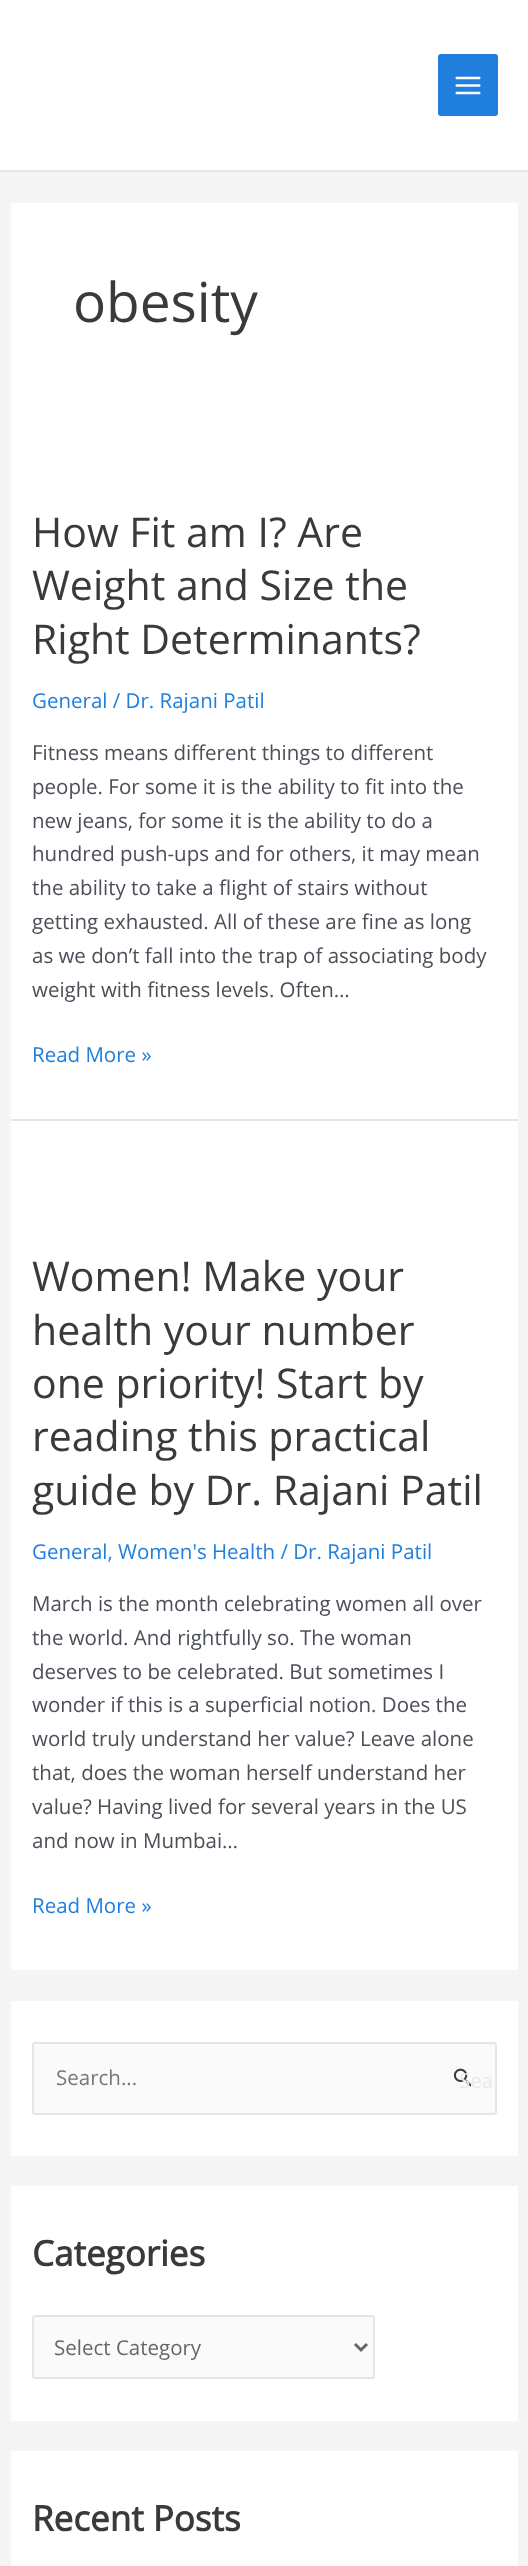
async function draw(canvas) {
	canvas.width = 528;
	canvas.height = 2566;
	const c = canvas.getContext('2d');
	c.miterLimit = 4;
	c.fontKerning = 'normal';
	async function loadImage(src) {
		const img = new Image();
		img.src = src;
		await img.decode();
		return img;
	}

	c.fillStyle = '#f5f5f5';
	c.fillRect(0, 0, 528, 2566);
	c.fillStyle = '#fff';
	c.fillRect(0, 0, 528, 170);
	c.fillStyle = '#e5e5e5';
	c.fillRect(0, 170, 528, 2);
	c.fillStyle = '#207fdc';
	c.beginPath();
	c.roundRect(438, 54, 60, 62, 3);
	c.fill();
	c.drawImage(await loadImage('img1.png'), 455, 76, 26, 19);
	c.fillStyle = '#fff';
	c.fillRect(11, 203, 507, 916);
	c.font = '55px Open Sans';
	c.fillStyle = '#3a3a3a';
	c.fillText('obesity', 73, 322);
	c.fillStyle = '#e5e5e5';
	c.fillRect(11, 1119, 507, 2);
	c.font = '41px Open Sans';
	c.fillStyle = '#3a3a3a';
	for (const [text, x, y] of [
		['How Fit am I? Are', 32, 547],
		['Weight and Size the', 32, 600],
		['Right Determinants?', 32, 654],
	]) {
		c.fillText(text, x, y);
	}
	c.font = '20.5px Open Sans';
	c.fillStyle = '#207fdc';
	c.fillText('General / Dr. Rajani Patil', 32, 708);
	c.fillStyle = '#4b4f58';
	for (const [text, x, y] of [
		['Fitness means different things to different', 32, 760],
		['people. For some it is the ability to fit into the', 32, 794],
		['new jeans, for some it is the ability to do a', 32, 828],
		['hundred push-ups and for others, it may mean', 32, 861],
		['the ability to take a flight of stairs without', 32, 895],
		['getting exhausted. All of these are fine as long', 32, 929],
		['as we don’t fall into the trap of associating body', 32, 963],
		['weight with fitness levels. Often…', 32, 997],
	]) {
		c.fillText(text, x, y);
	}
	c.fillStyle = '#207fdc';
	c.fillText('Read More »', 32, 1062);
	c.fillStyle = '#fff';
	c.fillRect(11, 1121, 507, 849);
	c.font = '41px Open Sans';
	c.fillStyle = '#3a3a3a';
	for (const [text, x, y] of [
		['Women! Make your', 32, 1291],
		['health your number', 32, 1345],
		['one priority! Start by', 32, 1398],
		['reading this practical', 32, 1451],
		['guide by Dr. Rajani Patil', 32, 1505],
	]) {
		c.fillText(text, x, y);
	}
	c.font = '20.5px Open Sans';
	c.fillStyle = '#207fdc';
	c.fillText('General, Women\'s Health / Dr. Rajani Patil', 32, 1559);
	c.fillStyle = '#4b4f58';
	for (const [text, x, y] of [
		['March is the month celebrating women all over', 32, 1611],
		['the world. And rightfully so. The woman', 32, 1645],
		['deserves to be celebrated. But sometimes I', 32, 1679],
		['wonder if this is a superficial notion. Does the', 32, 1712],
		['world truly understand her value? Leave alone', 32, 1746],
		['that, does the woman herself understand her', 32, 1780],
		['value? Having lived for several years in the US', 32, 1814],
		['and now in Mumbai…', 32, 1848],
	]) {
		c.fillText(text, x, y);
	}
	c.fillStyle = '#207fdc';
	c.fillText('Read More »', 32, 1913);
	c.fillStyle = '#fff';
	c.fillRect(11, 2001, 507, 155);
	c.fillStyle = '#fafafa';
	c.beginPath();
	c.roundRect(33, 2043, 463, 71, 2);
	c.fill();
	c.strokeStyle = '#e5e5e5';
	c.lineWidth = 2;
	c.stroke();
	c.fillStyle = '#757575';
	c.fillText('Search...', 56, 2085);
	c.drawImage(await loadImage('img2.png'), 453, 2068, 18, 19);
	c.fillStyle = '#e8e8e8';
	c.fillText('Sea', 459, 2088);
	c.fillStyle = '#fff';
	c.fillRect(11, 2186, 507, 235);
	c.font = 'bold 35px Open Sans';
	c.fillStyle = '#3a3a3a';
	c.fillText('Categories', 32, 2266);
	c.fillStyle = '#fafafa';
	c.beginPath();
	c.roundRect(33, 2316, 341, 62, 2);
	c.fill();
	c.stroke();
	c.beginPath();
	c.moveTo(355, 2344);
	c.lineTo(361, 2350);
	c.lineTo(367, 2344);
	c.strokeStyle = '#666';
	c.lineWidth = 3;
	c.stroke();
	c.font = '20.5px Open Sans';
	c.fillStyle = '#666';
	c.fillText('Select Category', 54, 2355);
	c.fillStyle = '#fff';
	c.fillRect(11, 2451, 507, 115);
	c.font = 'bold 35px Open Sans';
	c.fillStyle = '#3a3a3a';
	c.fillText('Recent Posts', 32, 2531);
}

draw(document.querySelector('canvas'));
